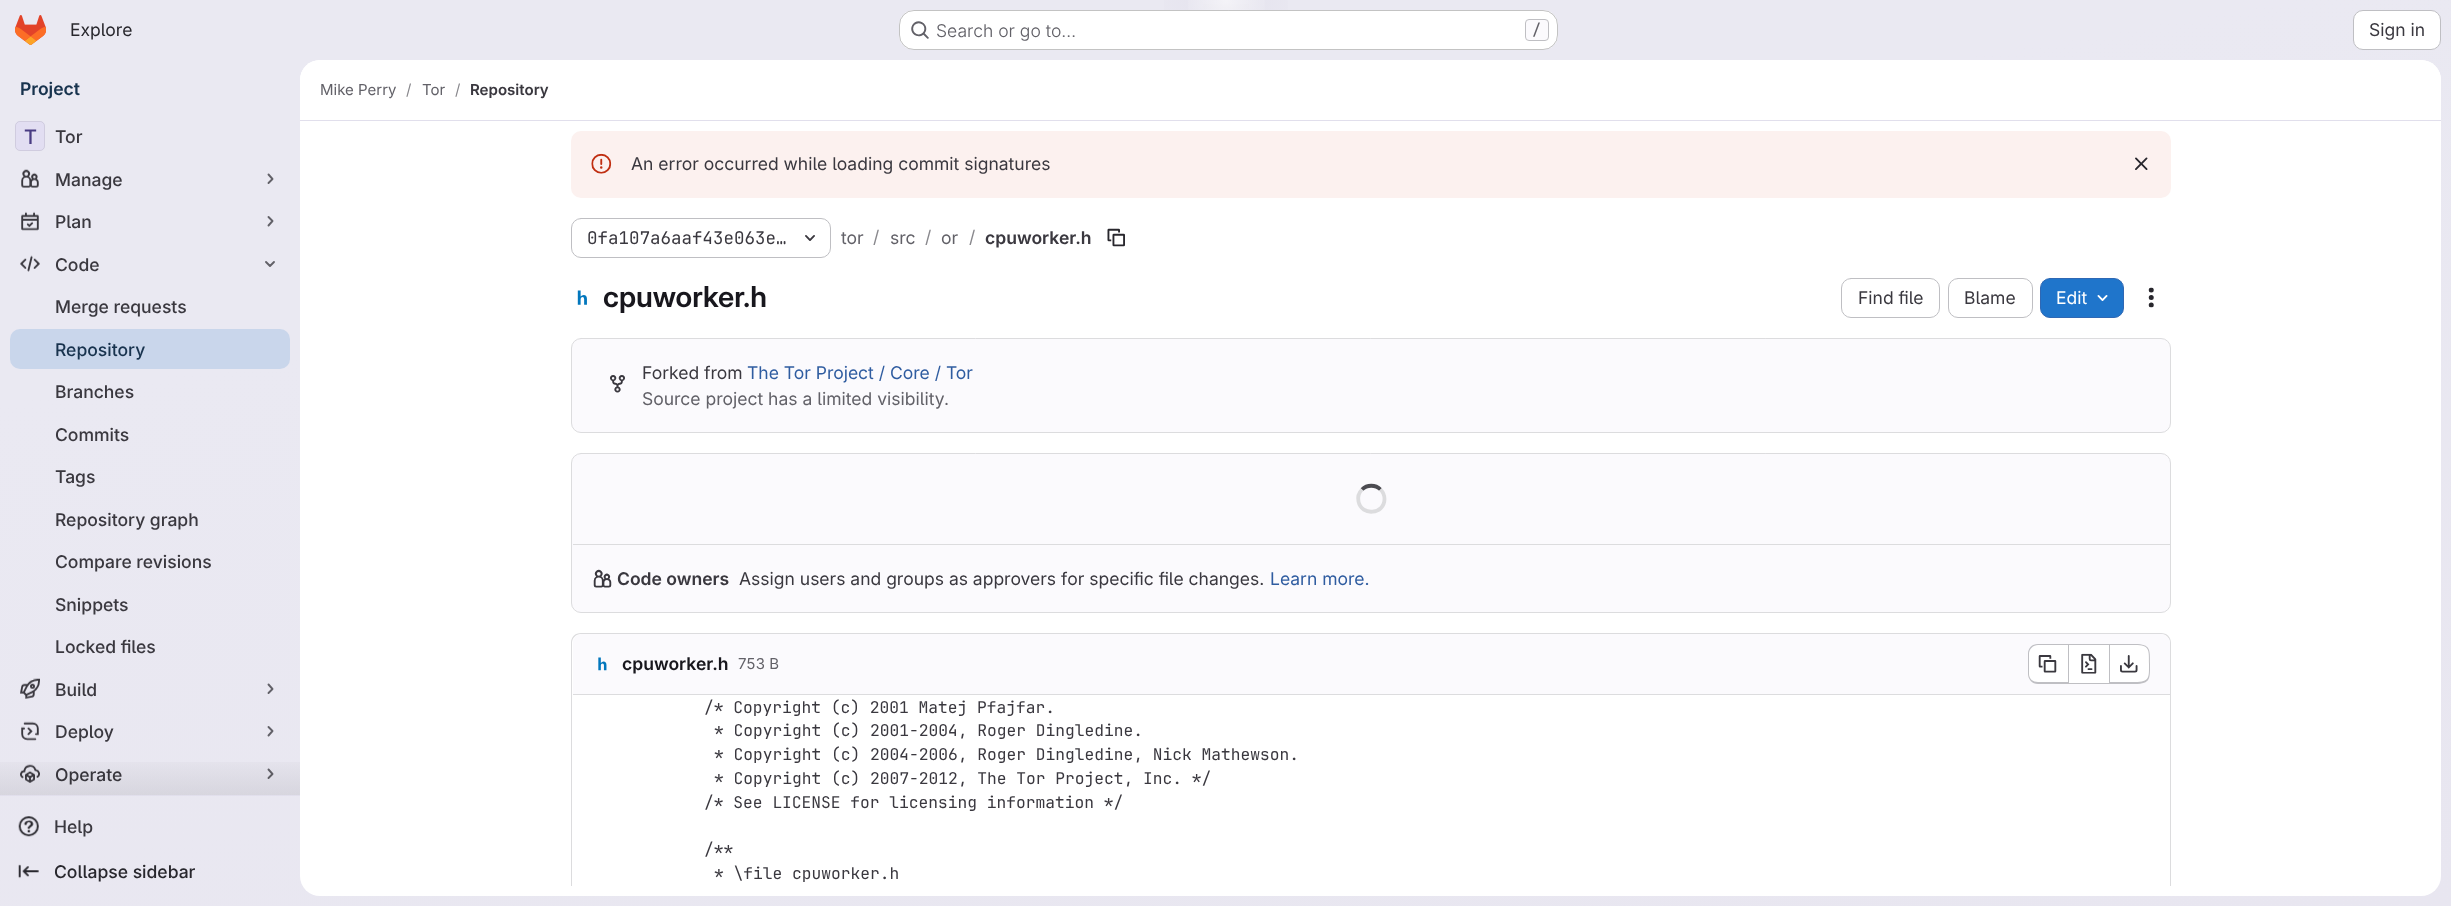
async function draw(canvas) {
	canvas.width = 2451;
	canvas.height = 906;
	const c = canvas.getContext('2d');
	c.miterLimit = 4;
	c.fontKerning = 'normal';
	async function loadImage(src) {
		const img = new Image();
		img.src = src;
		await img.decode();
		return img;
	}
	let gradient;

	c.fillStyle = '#fff';
	c.fillRect(0, 0, 2451, 906);
	gradient = c.createLinearGradient(1340, 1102, 1111, -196);
	gradient.addColorStop(0, '#e8e6f0');
	gradient.addColorStop(0.7, '#eae9f2');
	c.fillStyle = gradient;
	c.fillRect(0, 0, 2451, 906);
	gradient = c.createRadialGradient(1226, 0, 0, 1226, 0, 1226);
	gradient.addColorStop(0, '#e4e2ed');
	gradient.addColorStop(0.07, '#e4e2ed00');
	c.fillStyle = gradient;
	c.beginPath();
	c.rect(1164, 0, 124, 45);
	c.save();
	c.clip();
	c.scale(1, 906 / 1226);
	c.fillRect(0, 0, 2451, 1226);
	c.restore();
	gradient = c.createRadialGradient(1226, 0, 0, 1226, 0, 1226);
	gradient.addColorStop(0, '#e4e2ec');
	gradient.addColorStop(0.05, '#e4e2ec00');
	c.fillStyle = gradient;
	c.beginPath();
	c.rect(1203, 4, 46, 5);
	c.save();
	c.clip();
	c.scale(1, 906 / 1226);
	c.fillRect(0, 0, 2451, 1226);
	c.restore();
	gradient = c.createRadialGradient(1226, 0, 0, 1226, 0, 1524);
	gradient.addColorStop(0, '#ffffff99');
	gradient.addColorStop(0.03, '#ffffff00');
	c.fillStyle = gradient;
	c.fillRect(1188, 0, 77, 10);
	c.drawImage(await loadImage('img1.png'), 15, 15, 31, 30);
	c.font = '17.5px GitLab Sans';
	c.fillStyle = '#28272d';
	c.fillText('Explore', 70, 36);
	c.fillStyle = '#fff';
	c.beginPath();
	c.roundRect(899, 10, 659, 40, 15);
	c.fill();
	c.beginPath();
	c.roundRect(899.5, 10.5, 658, 39, 14.5);
	c.strokeStyle = '#0505063d';
	c.stroke();
	c.drawImage(await loadImage('img2.png'), 911, 21, 18, 18);
	c.font = '300 17.5px GitLab Sans';
	c.fillStyle = '#626168';
	c.fillText('Search or go to…', 936, 37);
	c.fillStyle = '#fbfafd';
	c.beginPath();
	c.roundRect(1525.5, 19.5, 23, 21, 3.5);
	c.fill();
	c.strokeStyle = '#bfbfc3';
	c.stroke();
	c.font = '500 15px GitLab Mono';
	c.fillStyle = '#626168';
	c.fillText('/', 1532, 35);
	c.fillStyle = '#fff';
	c.beginPath();
	c.roundRect(2353.5, 10.5, 87, 39, 9.5);
	c.fill();
	c.stroke();
	c.font = '17.5px GitLab Sans';
	c.fillStyle = '#3a383f';
	c.fillText('Sign in', 2369, 36);
	c.font = '600 17.5px GitLab Sans';
	c.fillStyle = '#18334e';
	c.fillText('Project', 20, 95);
	c.fillStyle = '#e1dfec';
	c.fillRect(0, 795, 300, 1);
	c.fillStyle = '#e2def2';
	c.beginPath();
	c.roundRect(15, 121, 30, 30, 5);
	c.fill();
	c.beginPath();
	c.roundRect(15.5, 121.5, 29, 29, 4.5);
	c.strokeStyle = '#05050614';
	c.stroke();
	c.font = '500 20px "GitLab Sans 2"';
	c.fillStyle = '#493c83';
	c.fillText('T', 24, 144);
	c.font = '500 17.5px GitLab Sans';
	c.fillStyle = '#3a383f';
	c.fillText('Tor', 55, 143);
	c.drawImage(await loadImage('img3.png'), 21, 169, 18, 19);
	c.fillText('Manage', 55, 186);
	c.beginPath();
	c.moveTo(268.5, 174.5);
	c.lineTo(272.5, 179);
	c.lineTo(268.5, 183);
	c.strokeStyle = '#626168';
	c.lineWidth = 1.9;
	c.lineCap = 'round';
	c.lineJoin = 'round';
	c.stroke();
	c.drawImage(await loadImage('img4.png'), 21, 211, 18, 20);
	c.fillText('Plan', 55, 228);
	c.beginPath();
	c.moveTo(268.5, 217);
	c.lineTo(272.5, 221);
	c.lineTo(268.5, 225.5);
	c.stroke();
	c.drawImage(await loadImage('img5.png'), 20, 255, 20, 17);
	c.fillText('Code', 55, 271);
	c.beginPath();
	c.moveTo(274, 262);
	c.lineTo(270, 266);
	c.lineTo(266, 262);
	c.stroke();
	c.fillText('Merge requests', 55, 313);
	c.fillStyle = '#c9d6eb';
	c.beginPath();
	c.roundRect(10, 329, 280, 40, 10);
	c.fill();
	c.fillStyle = '#18334e';
	c.fillText('Repository', 55, 356);
	c.fillStyle = '#3a383f';
	for (const [text, x, y] of [
		['Branches', 55, 398],
		['Commits', 55, 441],
		['Tags', 55, 483],
		['Repository graph', 55, 526],
		['Compare revisions', 55, 568],
		['Snippets', 55, 611],
		['Locked files', 55, 653],
	]) {
		c.fillText(text, x, y);
	}
	c.drawImage(await loadImage('img6.png'), 20, 678, 20, 21);
	c.fillText('Build', 55, 696);
	c.beginPath();
	c.moveTo(268.5, 684.5);
	c.lineTo(272.5, 689);
	c.lineTo(268.5, 693);
	c.stroke();
	c.drawImage(await loadImage('img7.png'), 21, 721, 18, 20);
	c.fillText('Deploy', 55, 738);
	c.beginPath();
	c.moveTo(268.5, 727);
	c.lineTo(272.5, 731);
	c.lineTo(268.5, 735.5);
	c.stroke();
	c.drawImage(await loadImage('img8.png'), 20, 764, 20, 19);
	c.fillText('Operate', 55, 781);
	c.beginPath();
	c.moveTo(268.5, 769.5);
	c.lineTo(272.5, 774);
	c.lineTo(268.5, 778);
	c.stroke();
	gradient = c.createLinearGradient(150, 750, 150, 795);
	gradient.addColorStop(0, '#05050600');
	gradient.addColorStop(1, '#05050614');
	c.fillStyle = gradient;
	c.fillRect(0, 762, 300, 33);
	c.drawImage(await loadImage('img9.png'), 18, 816, 21, 21);
	c.fillStyle = '#3a383f';
	c.fillText('Help', 54, 833);
	c.drawImage(await loadImage('img10.png'), 18, 864, 21, 15);
	c.fillStyle = '#28272d';
	c.fillText('Collapse sidebar', 54, 878);
	c.fillStyle = '#fff';
	c.beginPath();
	c.roundRect(300, 60, 2141, 836, 20);
	c.fill();
	c.beginPath();
	c.roundRect(300, 60, 2141, 61, [20, 20, 0, 0]);
	c.fill();
	c.fillStyle = '#e1dfec';
	c.fillRect(300, 120, 2141, 1);
	c.font = '15px GitLab Sans';
	c.fillStyle = '#626168';
	c.fillText('Mike Perry', 320, 95);
	c.fillStyle = '#89888d';
	c.fillText('/', 406, 95);
	c.fillStyle = '#626168';
	c.fillText('Tor', 422, 95);
	c.fillStyle = '#89888d';
	c.fillText('/', 455, 95);
	c.font = '600 15px GitLab Sans';
	c.fillStyle = '#3a383f';
	c.fillText('Repository', 470, 95);
	c.fillStyle = '#fcf1ef';
	c.beginPath();
	c.roundRect(571, 131, 1600, 67, 10);
	c.fill();
	c.drawImage(await loadImage('img11.png'), 591, 153, 21, 21);
	c.font = '17.5px GitLab Sans';
	c.fillStyle = '#3a383f';
	c.fillText('An error occurred while loading commit signatures', 631, 170);
	c.drawImage(await loadImage('img12.png'), 2135, 157, 13, 13);
	c.beginPath();
	c.roundRect(571.5, 218.5, 259, 39, 9.5);
	c.strokeStyle = '#bfbfc3';
	c.lineWidth = 1;
	c.lineJoin = 'miter';
	c.stroke();
	c.font = '17.5px GitLab Mono';
	c.fillText('0fa107a6aaf43e063e…', 587, 244);
	c.drawImage(await loadImage('img13.png'), 805, 235, 10, 6);
	c.font = '17.5px GitLab Sans';
	c.fillStyle = '#626168';
	c.fillText('tor', 841, 244);
	c.fillStyle = '#89888d';
	c.fillText('/', 873, 243);
	c.fillStyle = '#626168';
	c.fillText('src', 890, 244);
	c.fillStyle = '#89888d';
	c.fillText('/', 925, 243);
	c.fillStyle = '#626168';
	c.fillText('or', 941, 244);
	c.fillStyle = '#89888d';
	c.fillText('/', 969, 243);
	c.font = '600 17.5px GitLab Sans';
	c.fillStyle = '#3a383f';
	c.fillText('cpuworker.h', 985, 244);
	c.drawImage(await loadImage('img14.png'), 1107, 228, 18, 19);
	c.drawImage(await loadImage('img15.png'), 577, 290, 10, 15);
	c.font = '600 28.75px "GitLab Sans 2"';
	c.fillStyle = '#18171d';
	c.fillText('cpuworker.h', 603, 307);
	c.beginPath();
	c.roundRect(1841.5, 278.5, 98, 39, 9.5);
	c.stroke();
	c.font = '17.5px GitLab Sans';
	c.fillStyle = '#3a383f';
	c.fillText('Find file', 1858, 304);
	c.beginPath();
	c.roundRect(1948.5, 278.5, 84, 39, 9.5);
	c.stroke();
	c.fillText('Blame', 1964, 304);
	c.fillStyle = '#1f75cb';
	c.beginPath();
	c.roundRect(2040.5, 278.5, 83, 39, 9.5);
	c.fill();
	c.strokeStyle = '#2f68b4';
	c.stroke();
	c.fillStyle = '#fff';
	c.fillText('Edit', 2056, 304);
	c.drawImage(await loadImage('img16.png'), 2097, 295, 11, 6);
	c.drawImage(await loadImage('img17.png'), 2148, 287, 6, 21);
	c.fillStyle = '#fbfafd';
	c.beginPath();
	c.roundRect(571.5, 338.5, 1599, 94, 9.5);
	c.fill();
	c.strokeStyle = '#dcdcde';
	c.stroke();
	c.drawImage(await loadImage('img18.png'), 610, 375, 15, 18);
	c.fillStyle = '#3a383f';
	c.fillText('Forked from', 642, 379);
	c.fillStyle = '#2f5ca0';
	c.fillText('The Tor Project / Core / Tor', 747, 379);
	c.fillStyle = '#626168';
	c.fillText('Source project has a limited visibility.', 642, 405);
	c.fillStyle = '#fbfafd';
	c.beginPath();
	c.roundRect(571.5, 453.5, 1599, 159, 9.5);
	c.fill();
	c.stroke();
	c.beginPath();
	c.moveTo(1362, 489.5);
	c.bezierCurveTo(1367, 484.5, 1375.5, 484.5, 1380.5, 489.5);
	c.strokeStyle = '#4c4b51';
	c.lineWidth = 3.8;
	c.lineCap = 'butt';
	c.stroke();
	c.beginPath();
	c.moveTo(1380.5, 489.5);
	c.bezierCurveTo(1383, 492, 1384.5, 495.5, 1384.5, 499);
	c.bezierCurveTo(1384.5, 514.5, 1361.5, 516.5, 1358.5, 501.5);
	c.bezierCurveTo(1357.5, 497, 1359, 492.5, 1362, 489.5);
	c.strokeStyle = '#dcdcde';
	c.stroke();
	c.fillStyle = '#dcdcde';
	c.fillRect(573, 544, 1597, 1);
	c.drawImage(await loadImage('img19.png'), 593, 569, 19, 19);
	c.font = '600 17.5px GitLab Sans';
	c.fillStyle = '#3a383f';
	c.fillText('Code owners', 617, 585);
	c.font = '17.5px GitLab Sans';
	c.fillText('Assign users and groups as approvers for specific file changes.', 739, 585);
	c.fillStyle = '#2f5ca0';
	c.fillText('Learn more.', 1270, 585);
	c.save();
	c.beginPath();
	c.rect(300, 121, 2141, 765);
	c.clip();
	c.fillStyle = '#dcdcde';
	c.beginPath();
	c.moveTo(581, 633);
	c.bezierCurveTo(575, 633, 571, 637, 571, 643);
	c.lineTo(571, 896);
	c.lineTo(572, 896);
	c.lineTo(572, 643);
	c.bezierCurveTo(572, 638, 576, 634, 581, 634);
	c.lineTo(2161, 634);
	c.bezierCurveTo(2166, 634, 2170, 638, 2170, 643);
	c.lineTo(2170, 896);
	c.lineTo(2171, 896);
	c.lineTo(2171, 643);
	c.bezierCurveTo(2171, 637, 2167, 633, 2161, 633);
	c.closePath();
	c.fill();
	c.restore();
	c.fillStyle = '#fbfafd';
	c.beginPath();
	c.roundRect(573, 634, 1597, 61, [9, 9, 0, 0]);
	c.fill();
	c.fillStyle = '#dcdcde';
	c.fillRect(573, 694, 1597, 1);
	c.drawImage(await loadImage('img20.png'), 598, 657, 9, 14);
	c.font = '600 17.5px GitLab Sans';
	c.fillStyle = '#18171d';
	c.fillText('cpuworker.h', 622, 670);
	c.font = '15px GitLab Sans';
	c.fillStyle = '#626168';
	c.fillText('753 B', 738, 669);
	c.fillStyle = '#fff';
	c.beginPath();
	c.roundRect(2029, 645, 39, 38, [9, 0, 0, 9]);
	c.fill();
	c.fillStyle = '#bfbfc3';
	c.beginPath();
	c.moveTo(2038, 644);
	c.lineTo(2068, 644);
	c.lineTo(2068, 684);
	c.lineTo(2038, 684);
	c.bezierCurveTo(2032, 684, 2028, 679, 2028, 674);
	c.lineTo(2028, 654);
	c.bezierCurveTo(2028, 648, 2032, 644, 2038, 644);
	c.closePath();
	c.moveTo(2038, 645);
	c.lineTo(2068, 645);
	c.lineTo(2068, 682);
	c.lineTo(2038, 682);
	c.bezierCurveTo(2033, 682, 2029, 679, 2029, 674);
	c.lineTo(2029, 654);
	c.bezierCurveTo(2029, 649, 2033, 645, 2038, 645);
	c.closePath();
	c.fill('evenodd');
	c.drawImage(await loadImage('img21.png'), 2038, 655, 19, 18);
	for (const [x, y, w, h, color] of [
		[2069, 645, 40, 38, '#fff'],
		[2069, 644, 40, 1, '#bfbfc3'],
		[2069, 683, 40, 1, '#bfbfc3'],
		[2068, 644, 1, 40, '#bfbfc3'],
	]) {
		c.fillStyle = color;
		c.fillRect(x, y, w, h);
	}
	c.drawImage(await loadImage('img22.png'), 2081, 653, 16, 21);
	c.fillStyle = '#fff';
	c.beginPath();
	c.roundRect(2110, 645, 39, 38, [0, 9, 9, 0]);
	c.fill();
	c.fillStyle = '#bfbfc3';
	c.beginPath();
	c.moveTo(2110, 644);
	c.lineTo(2135, 644);
	c.bezierCurveTo(2151, 644, 2150, 650, 2150, 664);
	c.bezierCurveTo(2150, 678, 2151, 684, 2135, 684);
	c.lineTo(2110, 684);
	c.closePath();
	c.moveTo(2110, 645);
	c.lineTo(2135, 645);
	c.bezierCurveTo(2150, 645, 2149, 650, 2149, 664);
	c.bezierCurveTo(2149, 677, 2150, 682, 2135, 682);
	c.lineTo(2110, 682);
	c.closePath();
	c.fill('evenodd');
	c.fillRect(2109, 644, 1, 40);
	c.drawImage(await loadImage('img23.png'), 2120, 655, 18, 18);
	c.font = '16.25px GitLab Mono';
	c.fillStyle = '#3a383f';
	for (const [text, x, y] of [
		['/* Copyright (c) 2001 Matej Pfajfar.', 704, 713],
		['* Copyright (c) 2001-2004, Roger Dingledine.', 714, 736],
		['* Copyright (c) 2004-2006, Roger Dingledine, Nick Mathewson.', 714, 760],
		['* Copyright (c) 2007-2012, The Tor Project, Inc. */', 714, 784],
		['/* See LICENSE for licensing information */', 704, 808],
		['/**', 704, 855],
		['* \\file cpuworker.h', 714, 879],
	]) {
		c.fillText(text, x, y);
	}
}

draw(document.querySelector('canvas'));
